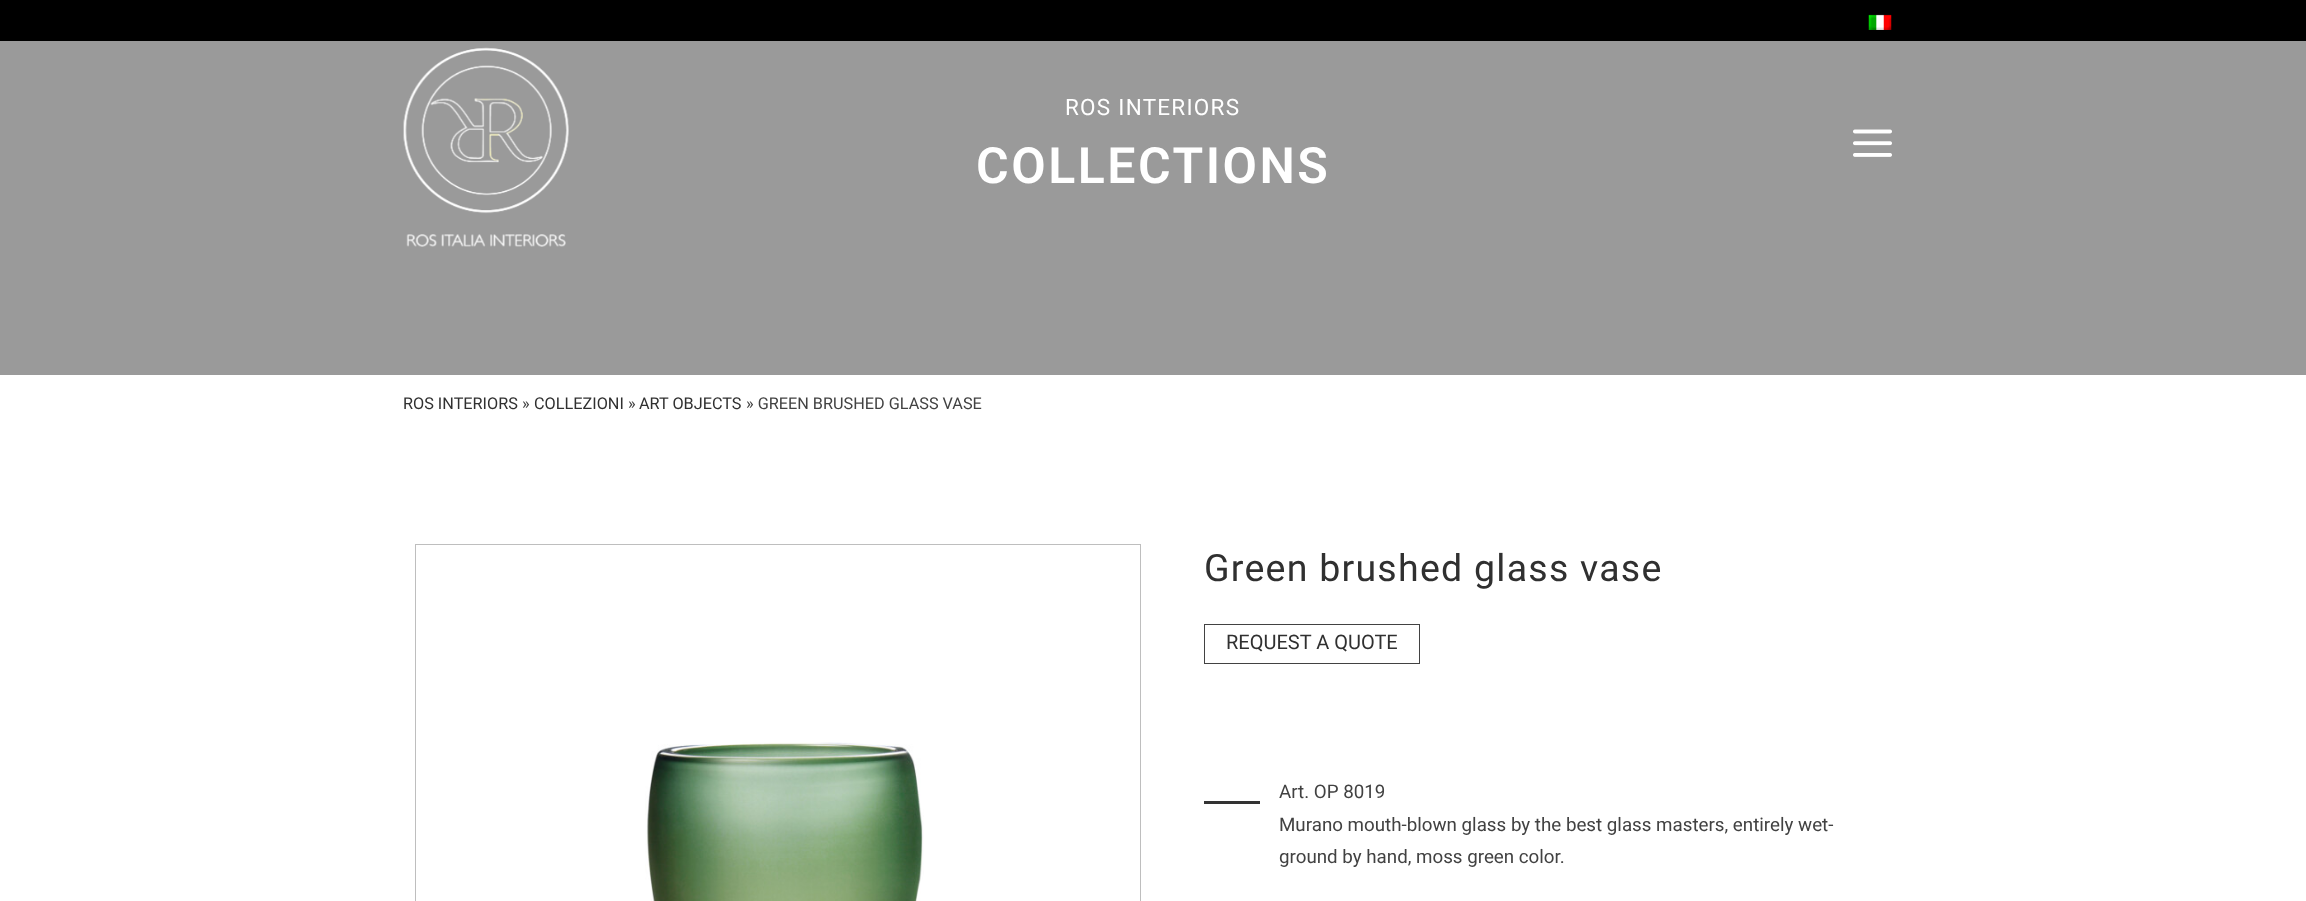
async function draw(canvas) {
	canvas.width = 2306;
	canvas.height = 901;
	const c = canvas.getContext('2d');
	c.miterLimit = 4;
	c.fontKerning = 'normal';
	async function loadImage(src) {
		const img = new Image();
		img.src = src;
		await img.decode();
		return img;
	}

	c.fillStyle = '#fff';
	c.fillRect(0, 0, 2306, 901);
	c.fillStyle = '#000';
	c.fillRect(0, 0, 2306, 41);
	c.drawImage(await loadImage('img1.png'), 1868, 14, 24, 16);
	c.fillStyle = '#9a9a9a';
	c.fillRect(0, 41, 2306, 334);
	c.drawImage(await loadImage('img2.png'), 403, 47, 166, 200);
	c.drawImage(await loadImage('img3.png'), 1853, 129, 39, 28);
	c.letterSpacing = '1.25px';
	c.font = '22.5px Roboto';
	c.fillStyle = '#fff';
	c.fillText('ROS INTERIORS', 1065, 115);
	c.letterSpacing = '2.5px';
	c.font = '600 50px Roboto';
	c.fillText('COLLECTIONS', 976, 183);
	c.letterSpacing = '0px';
	c.font = '16.25px Roboto';
	c.fillStyle = '#303030';
	c.fillText('ROS INTERIORS', 403, 409);
	c.fillStyle = '#424242';
	c.fillText('»', 522, 409);
	c.fillStyle = '#303030';
	c.fillText('COLLEZIONI', 534, 409);
	c.fillStyle = '#424242';
	c.fillText('»', 628, 409);
	c.fillStyle = '#303030';
	c.fillText('ART OBJECTS', 639, 409);
	c.fillStyle = '#424242';
	c.fillText('» GREEN BRUSHED GLASS VASE', 746, 409);
	c.strokeStyle = '#bebebe';
	c.strokeRect(415.5, 544.5, 725, 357);
	c.drawImage(await loadImage('img4.png'), 645, 742, 279, 159);
	c.letterSpacing = '1.25px';
	c.font = '37.5px Roboto';
	c.fillStyle = '#303030';
	c.fillText('Green brushed glass vase', 1204, 581);
	c.strokeStyle = '#424242';
	c.strokeRect(1204.5, 624.5, 215, 39);
	c.letterSpacing = '0px';
	c.font = '20px Roboto';
	c.fillText('REQUEST A QUOTE', 1226, 649);
	c.fillStyle = '#333';
	c.fillRect(1204, 801, 56, 3);
	c.font = '18.75px Roboto';
	c.fillStyle = '#424242';
	for (const [text, x, y] of [
		['Art. OP 8019', 1279, 798],
		['Murano mouth-blown glass by the best glass masters, entirely wet-', 1279, 831],
		['ground by hand, moss green color.', 1279, 863],
	]) {
		c.fillText(text, x, y);
	}
}

draw(document.querySelector('canvas'));
